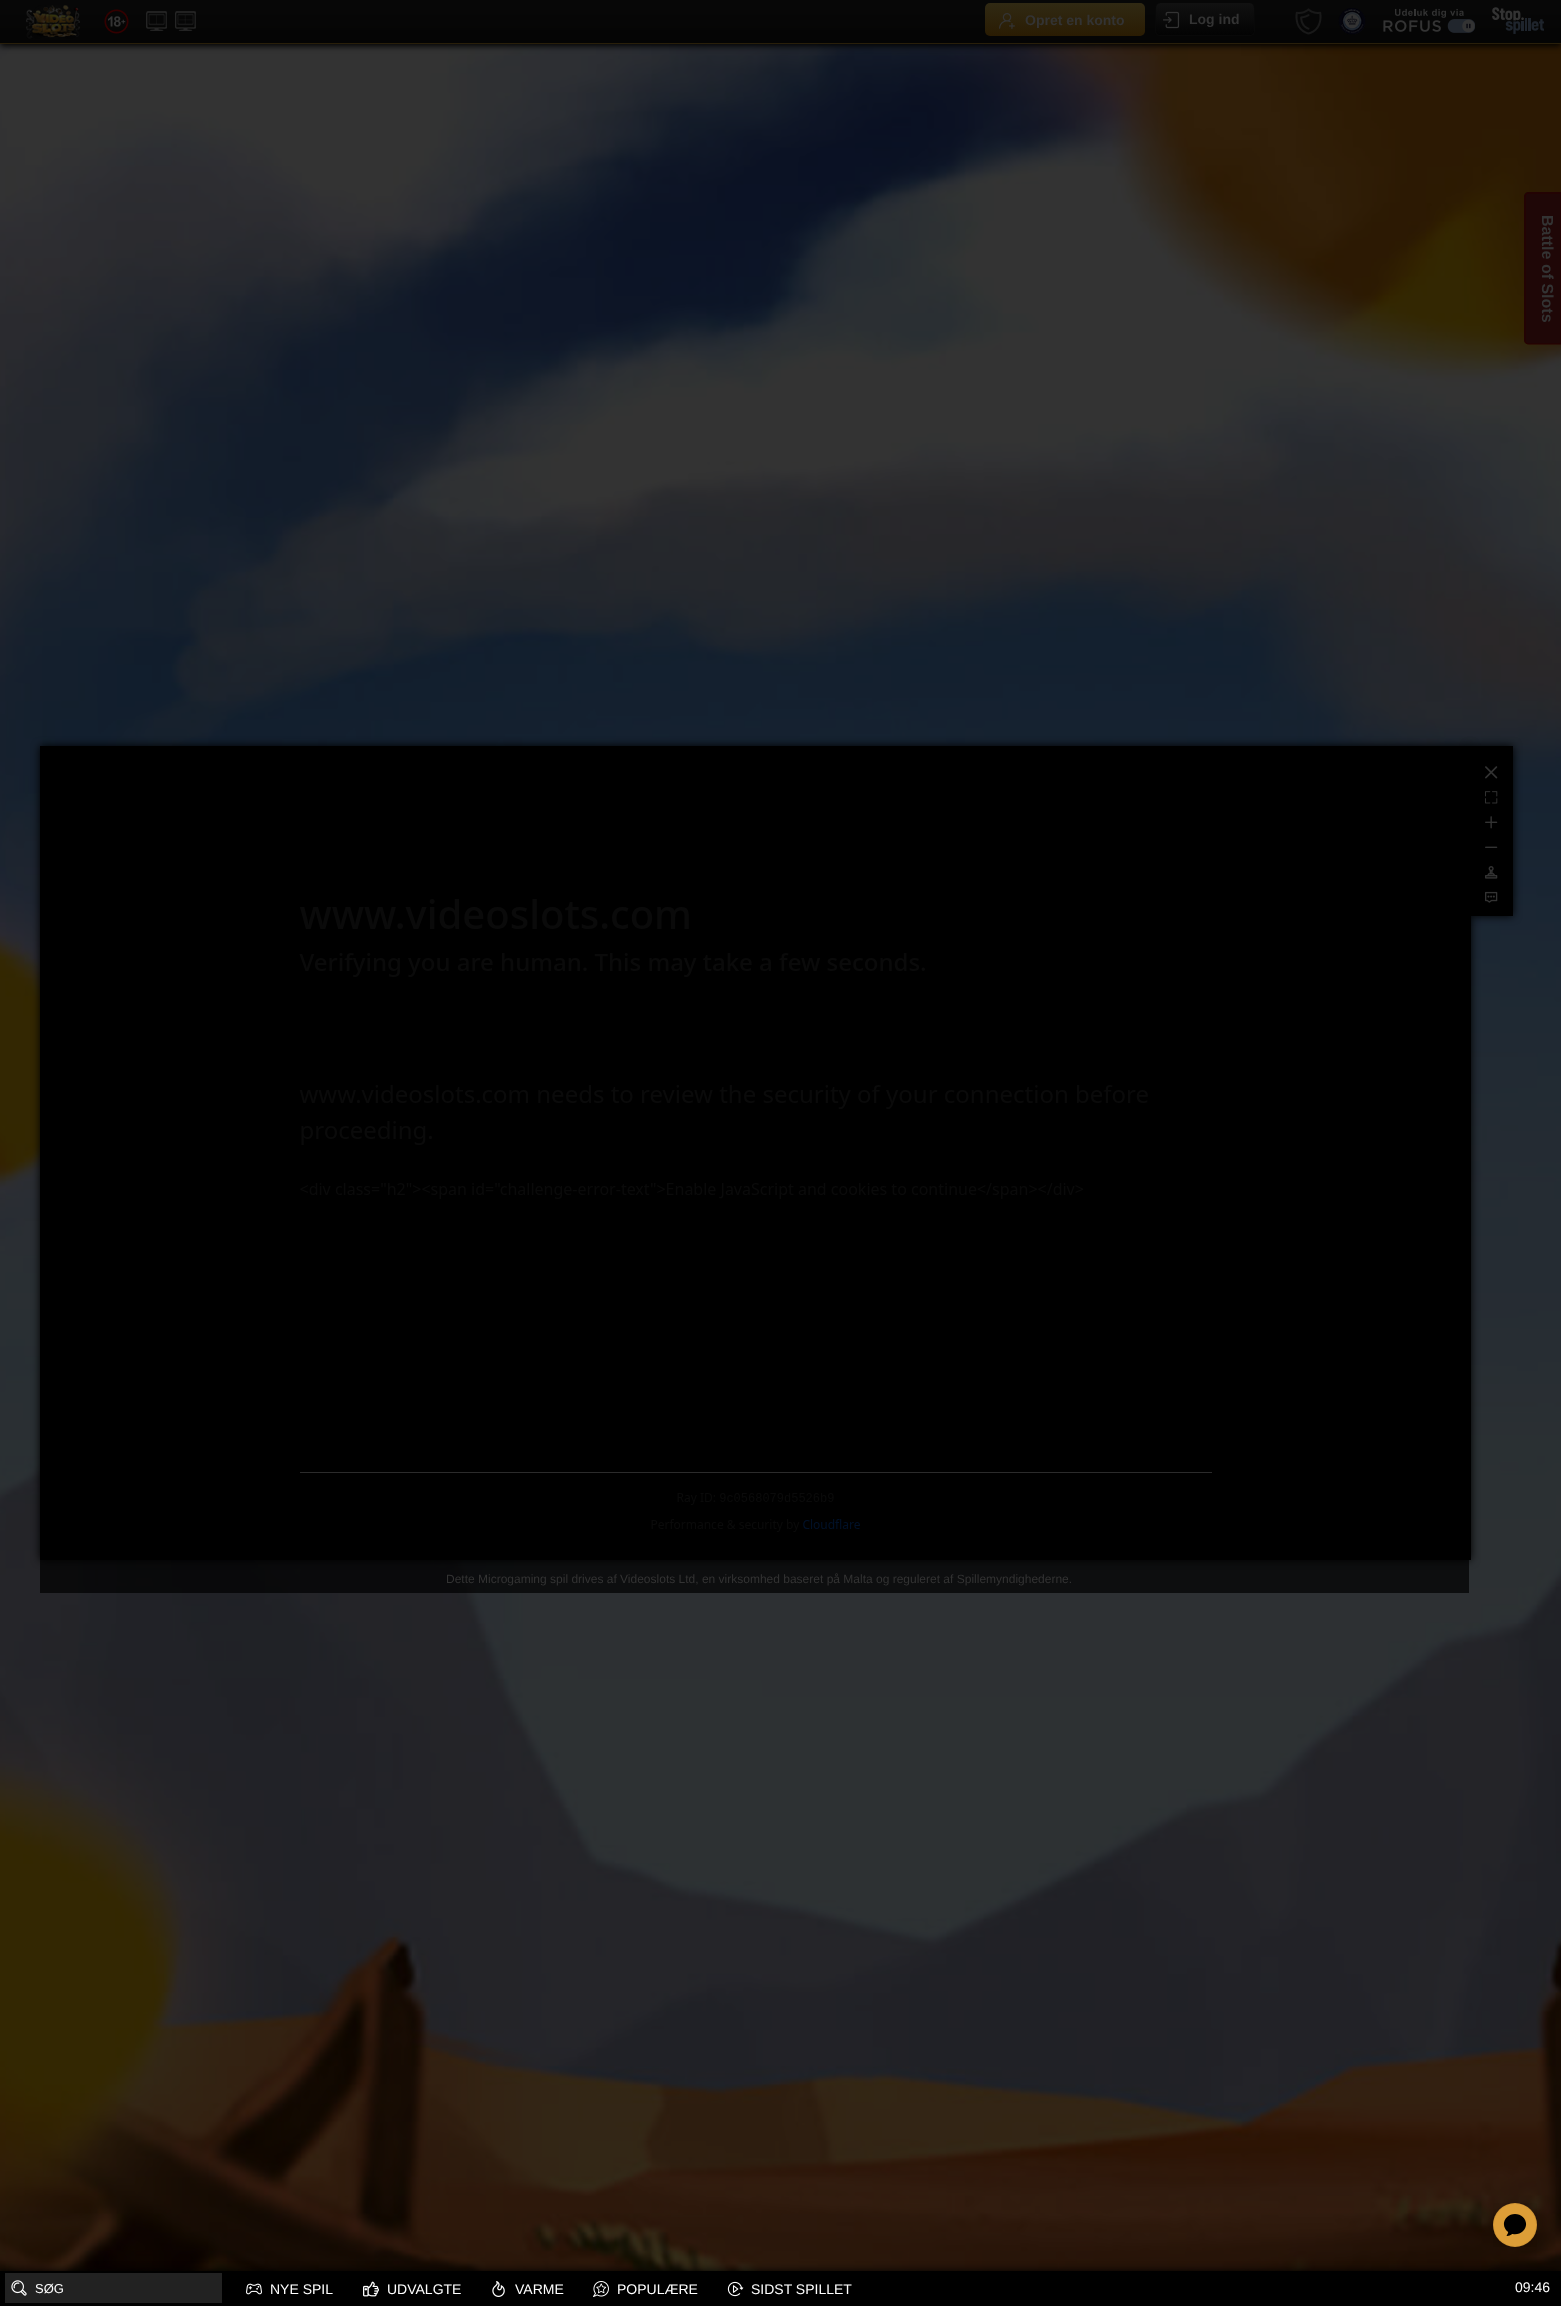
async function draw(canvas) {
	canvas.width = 1561;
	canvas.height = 2306;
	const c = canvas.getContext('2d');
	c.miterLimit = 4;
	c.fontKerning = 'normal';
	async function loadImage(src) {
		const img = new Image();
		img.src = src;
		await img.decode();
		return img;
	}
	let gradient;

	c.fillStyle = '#fff';
	c.fillRect(0, 0, 1561, 2306);
	c.drawImage(await loadImage('img12.png'), 0, 44, 1561, 2227);
	c.fillStyle = '#000';
	c.filter = 'blur(3px)';
	c.beginPath();
	c.rect(0, 2, 1561, 44);
	c.fill();
	c.filter = 'none';
	c.drawImage(await loadImage('img1.png'), 0, 0, 1561, 43);
	c.fillStyle = '#291f0a';
	c.fillRect(0, 43, 1561, 1);
	c.drawImage(await loadImage('img2.png'), 26, 5, 54, 34);
	c.drawImage(await loadImage('img3.png'), 104, 9, 25, 25);
	c.drawImage(await loadImage('img4.png'), 146, 11, 21, 20);
	c.drawImage(await loadImage('img5.png'), 175, 11, 21, 20);
	gradient = c.createLinearGradient(1065, 3, 1065, 36);
	gradient.addColorStop(0, '#302913');
	gradient.addColorStop(1, '#2a1c03');
	c.fillStyle = gradient;
	c.beginPath();
	c.roundRect(985, 3, 160, 33, 5);
	c.fill();
	c.drawImage(await loadImage('img6.png'), 999, 13, 16, 16);
	c.font = 'bold 14px Liberation Sans';
	c.fillStyle = '#333';
	c.fillText('Opret en konto', 1025, 25);
	c.save();
	c.beginPath();
	c.roundRect(1155, 3, 100, 33, 5);
	c.clip();
	gradient = c.createLinearGradient(1205, 3, 1205, 35);
	gradient.addColorStop(0, '#111');
	gradient.addColorStop(1, '#030303');
	c.fillStyle = gradient;
	c.beginPath();
	c.roundRect(1155, 3, 100, 32, [5, 5, 0, 0]);
	c.fill();
	c.restore();
	c.fillStyle = '#080808';
	c.beginPath();
	c.moveTo(1160, 3);
	c.lineTo(1250, 3);
	c.bezierCurveTo(1253, 3, 1255, 5, 1255, 8);
	c.lineTo(1255, 31);
	c.bezierCurveTo(1255, 34, 1253, 36, 1250, 36);
	c.lineTo(1160, 36);
	c.bezierCurveTo(1157, 36, 1155, 34, 1155, 31);
	c.lineTo(1155, 8);
	c.bezierCurveTo(1155, 5, 1157, 3, 1160, 3);
	c.closePath();
	c.moveTo(1160, 3);
	c.lineTo(1250, 3);
	c.bezierCurveTo(1252, 3, 1254, 5, 1254, 8);
	c.lineTo(1254, 31);
	c.bezierCurveTo(1254, 33, 1252, 35, 1250, 35);
	c.lineTo(1160, 35);
	c.bezierCurveTo(1158, 35, 1156, 33, 1156, 31);
	c.lineTo(1156, 8);
	c.bezierCurveTo(1156, 5, 1158, 3, 1160, 3);
	c.closePath();
	c.fill('evenodd');
	c.drawImage(await loadImage('img7.png'), 1163, 11, 17, 18);
	c.fillStyle = '#333';
	c.fillText('Log ind', 1189, 24);
	c.drawImage(await loadImage('img8.png'), 1295, 8, 27, 27);
	c.drawImage(await loadImage('img9.png'), 1338, 8, 28, 27);
	c.drawImage(await loadImage('img10.png'), 1383, 8, 92, 25);
	c.drawImage(await loadImage('img11.png'), 1492, 7, 52, 27);
	c.fillStyle = '#1f0707';
	c.beginPath();
	c.moveTo(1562, 192);
	c.lineTo(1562, 344);
	c.lineTo(1528, 344);
	c.bezierCurveTo(1526, 344, 1524, 343, 1524, 340);
	c.lineTo(1524, 196);
	c.bezierCurveTo(1524, 194, 1526, 192, 1528, 192);
	c.closePath();
	c.fill();
	c.beginPath();
	c.moveTo(1561, 193);
	c.lineTo(1561, 344);
	c.lineTo(1528.5, 344);
	c.bezierCurveTo(1526.5, 344, 1525, 342.5, 1525, 340.5);
	c.lineTo(1525, 196.5);
	c.bezierCurveTo(1525, 194.5, 1526.5, 193, 1528.5, 193);
	c.closePath();
	c.strokeStyle = '#290000';
	c.stroke();
	c.font = 'bold 16px Liberation Sans';
	c.fillStyle = '#333';
	c.save();
	c.translate(1542, 215);
	c.rotate(90 * Math.PI / 180);
	c.fillText('Battle of Slots', 0, 0);
	c.restore();
	c.fillStyle = '#000000b3';
	c.fillRect(40, 1560, 1429, 33);
	c.font = '12px Liberation Sans';
	c.fillStyle = '#333';
	c.fillText('Dette Microgaming spil drives af Videoslots Ltd, en virksomhed baseret på Malta og reguleret af Spillemyndighederne.', 446, 1583);
	c.fillStyle = '#000';
	c.filter = 'blur(4px)';
	c.beginPath();
	c.rect(0, 2271, 1561, 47);
	c.fill();
	c.filter = 'none';
	c.fillRect(0, 2271, 1561, 35);
	c.fillStyle = '#222';
	c.fillRect(5, 2273, 217, 30);
	c.drawImage(await loadImage('img13.png'), 11, 2280, 16, 16);
	c.font = '13px Liberation Sans';
	c.fillStyle = '#fff';
	c.fillText('SØG', 35, 2293);
	c.drawImage(await loadImage('img14.png'), 246, 2283, 16, 12);
	c.font = '14px Liberation Sans';
	c.fillText('NYE SPIL', 270, 2294);
	c.drawImage(await loadImage('img15.png'), 363, 2281, 16, 16);
	c.fillText('UDVALGTE', 387, 2294);
	c.drawImage(await loadImage('img16.png'), 492, 2281, 13, 16);
	c.fillText('VARME', 515, 2294);
	c.drawImage(await loadImage('img17.png'), 593, 2281, 16, 16);
	c.fillText('POPULÆRE', 617, 2294);
	c.drawImage(await loadImage('img18.png'), 727, 2281, 17, 16);
	c.fillText('SIDST SPILLET', 751, 2294);
	c.fillText('09:46', 1515, 2292);
	c.fillStyle = '#000';
	c.filter = 'blur(4px)';
	c.beginPath();
	c.rect(40, 746, 1431, 814);
	c.fill();
	c.filter = 'none';
	c.strokeStyle = '#000';
	c.lineWidth = 10;
	c.strokeRect(45, 751, 1421, 804);
	c.filter = 'blur(4px)';
	c.beginPath();
	c.rect(1469, 746, 44, 170);
	c.fill();
	c.filter = 'none';
	c.fillRect(1471, 746, 42, 170);
	c.drawImage(await loadImage('img19.png'), 1485, 766, 13, 13);
	c.drawImage(await loadImage('img20.png'), 1485, 791, 13, 13);
	c.drawImage(await loadImage('img21.png'), 1485, 816, 13, 13);
	c.drawImage(await loadImage('img22.png'), 1485, 846, 13, 2);
	c.drawImage(await loadImage('img23.png'), 1485, 866, 13, 13);
	c.drawImage(await loadImage('img24.png'), 1485, 891, 13, 12);
	c.drawImage(await loadImage('img25.png'), 299, 899, 913, 633);
	c.drawImage(await loadImage('img26.png'), 1493, 2203, 44, 44);
}

draw(document.querySelector('canvas'));
